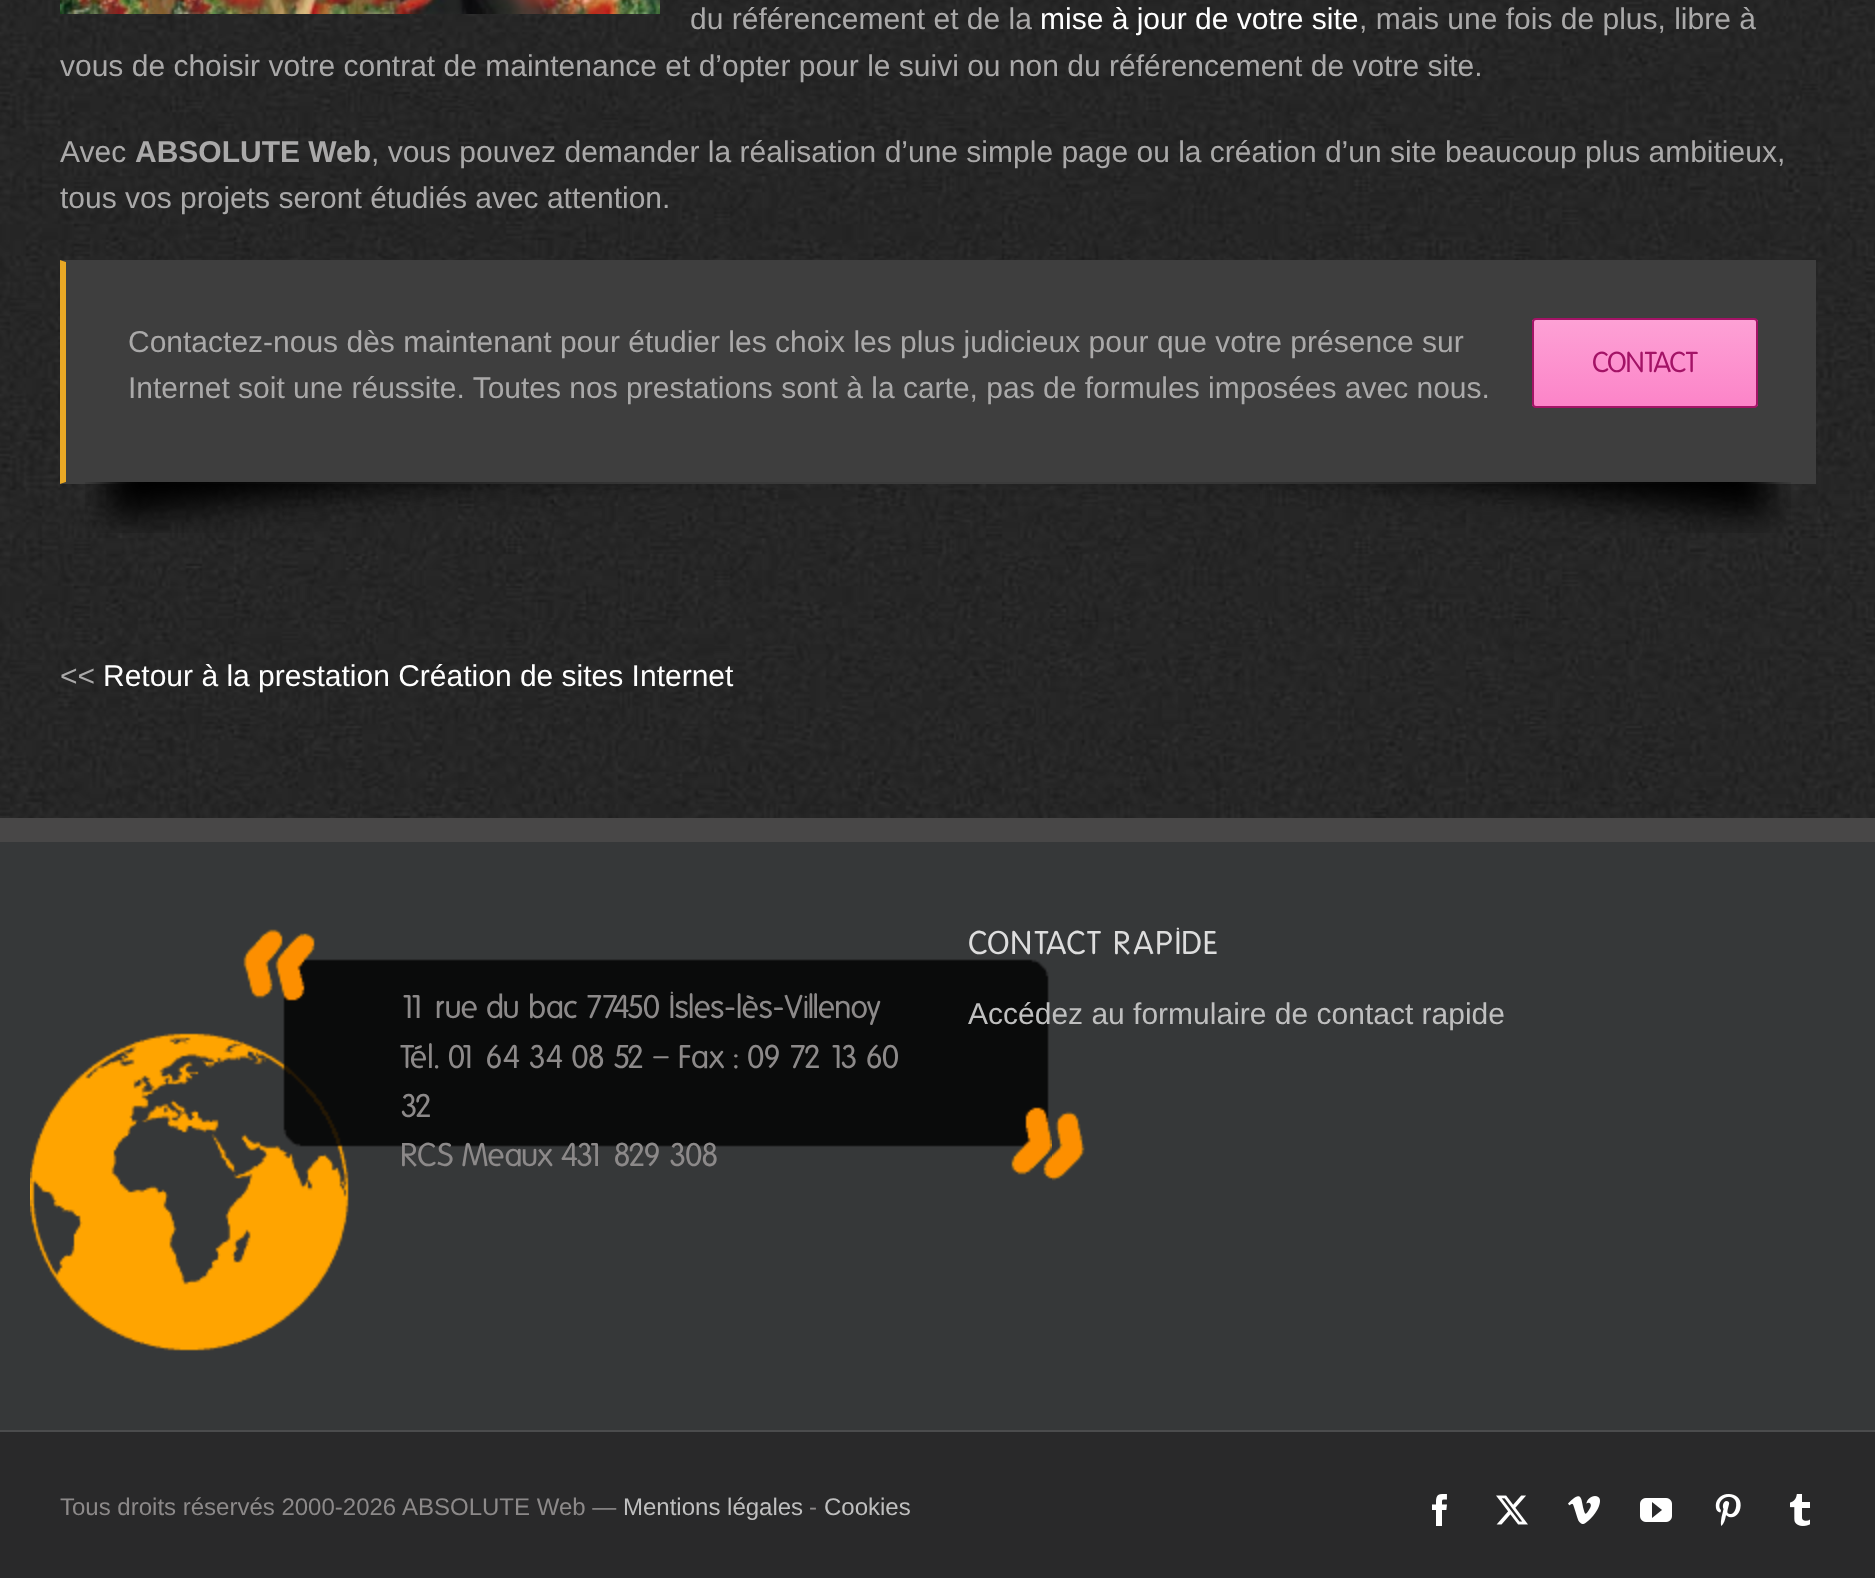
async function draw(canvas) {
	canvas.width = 1875;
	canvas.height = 1578;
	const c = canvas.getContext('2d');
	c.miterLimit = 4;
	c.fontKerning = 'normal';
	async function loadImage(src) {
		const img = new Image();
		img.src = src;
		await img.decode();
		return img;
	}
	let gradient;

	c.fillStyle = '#29292a';
	c.fillRect(0, 0, 1875, 1578);
	c.drawImage(await loadImage('img1.png'), 0, 0, 1875, 818);
	c.drawImage(await loadImage('img2.png'), 60, 0, 600, 14);
	c.font = '30px Liberation Sans';
	c.fillStyle = '#aaa9a9';
	c.fillText('du référencement et de la', 690, 29);
	c.fillStyle = '#fff';
	c.fillText('mise à jour de votre site', 1040, 29);
	c.fillStyle = '#aaa9a9';
	for (const [text, x, y] of [
		[', mais une fois de plus, libre à', 1359, 29],
		['vous de choisir votre contrat de maintenance et d’opter pour le suivi ou non du référencement de votre site.', 60, 76],
		['Avec', 60, 162],
	]) {
		c.fillText(text, x, y);
	}
	c.font = 'bold 30px Liberation Sans';
	c.fillText('ABSOLUTE Web', 135, 162);
	c.font = '30px Liberation Sans';
	c.fillText(', vous pouvez demander la réalisation d’une simple page ou la création d’un site beaucoup plus ambitieux,', 371, 162);
	c.fillText('tous vos projets seront étudiés avec attention.', 60, 208);
	c.fillStyle = '#3e3e3e';
	c.fillRect(66, 262, 1748, 220);
	c.beginPath();
	c.moveTo(60, 260);
	c.lineTo(1816, 260);
	c.lineTo(1814, 262);
	c.lineTo(66, 262);
	c.closePath();
	c.fill();
	c.fillRect(1814, 260, 2, 224);
	c.beginPath();
	c.moveTo(1816, 484);
	c.lineTo(60, 484);
	c.lineTo(66, 482);
	c.lineTo(1814, 482);
	c.closePath();
	c.fill();
	c.fillStyle = '#e9a825';
	c.beginPath();
	c.moveTo(60, 484);
	c.lineTo(60, 260);
	c.lineTo(66, 262);
	c.lineTo(66, 482);
	c.closePath();
	c.fill();
	c.fillStyle = '#aaa9a9';
	c.fillText('Contactez-nous dès maintenant pour étudier les choix les plus judicieux pour que votre présence sur', 128, 352);
	c.fillText('Internet soit une réussite. Toutes nos prestations sont à la carte, pas de formules imposées avec nous.', 128, 398);
	c.save();
	c.beginPath();
	c.roundRect(1532, 318, 226, 90, 4);
	c.clip();
	gradient = c.createLinearGradient(1645, 406, 1645, 320);
	gradient.addColorStop(0, '#fc84c8');
	gradient.addColorStop(1, '#fda1d5');
	c.fillStyle = gradient;
	c.fillRect(1532, 320, 226, 86);
	c.restore();
	c.beginPath();
	c.roundRect(1533, 319, 224, 88, 3);
	c.strokeStyle = '#a31366';
	c.lineWidth = 2;
	c.stroke();
	c.font = '28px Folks';
	c.fillStyle = '#a31366';
	c.fillText('CONTACT', 1592, 372);
	c.drawImage(await loadImage('img3.png'), 85, 482, 1706, 51);
	c.font = '30px Liberation Sans';
	c.fillStyle = '#aaa9a9';
	c.fillText('<<', 60, 686);
	c.fillStyle = '#fff';
	c.fillText('Retour à la prestation Création de sites Internet', 103, 686);
	c.fillStyle = '#363839';
	c.fillRect(0, 842, 1875, 588);
	c.fillStyle = '#484747';
	c.fillRect(0, 818, 1875, 24);
	c.drawImage(await loadImage('img4.png'), 30, 929, 1055, 422);
	c.letterSpacing = '2px';
	c.font = '32px Folks';
	c.fillStyle = '#ddd';
	c.fillText('CONTACT RAPIDE', 968, 954);
	c.letterSpacing = '0px';
	c.font = '30px Liberation Sans';
	c.fillStyle = '#bfbfbf';
	c.fillText('Accédez au formulaire de contact rapide', 968, 1024);
	c.font = '32px Folks';
	c.fillStyle = '#8c8989';
	for (const [text, x, y] of [
		['11 rue du bac 77450 Isles-lès-Villenoy', 400, 1018],
		['Tél. 01 64 34 08 52 – Fax : 09 72 13 60', 400, 1068],
		['32', 400, 1117],
		['RCS Meaux 431 829 308', 400, 1166],
	]) {
		c.fillText(text, x, y);
	}
	c.fillStyle = '#4b4c4d';
	c.fillRect(0, 1430, 1875, 2);
	c.font = '24px Liberation Sans';
	c.fillStyle = '#8c8989';
	c.fillText('Tous droits réservés 2000-2026', 60, 1515);
	c.fillText('ABSOLUTE Web —', 402, 1515);
	c.fillStyle = '#bfbfbf';
	c.fillText('Mentions légales', 623, 1515);
	c.fillStyle = '#8c8989';
	c.fillText('-', 809, 1515);
	c.fillStyle = '#bfbfbf';
	c.fillText('Cookies', 824, 1515);
	c.drawImage(await loadImage('img5.png'), 1432, 1494, 15, 32);
	c.drawImage(await loadImage('img6.png'), 1496, 1495, 32, 30);
	c.drawImage(await loadImage('img7.png'), 1568, 1496, 32, 28);
	c.drawImage(await loadImage('img8.png'), 1640, 1498, 32, 24);
	c.drawImage(await loadImage('img9.png'), 1715, 1494, 26, 32);
	c.drawImage(await loadImage('img10.png'), 1790, 1494, 20, 32);
}

draw(document.querySelector('canvas'));
